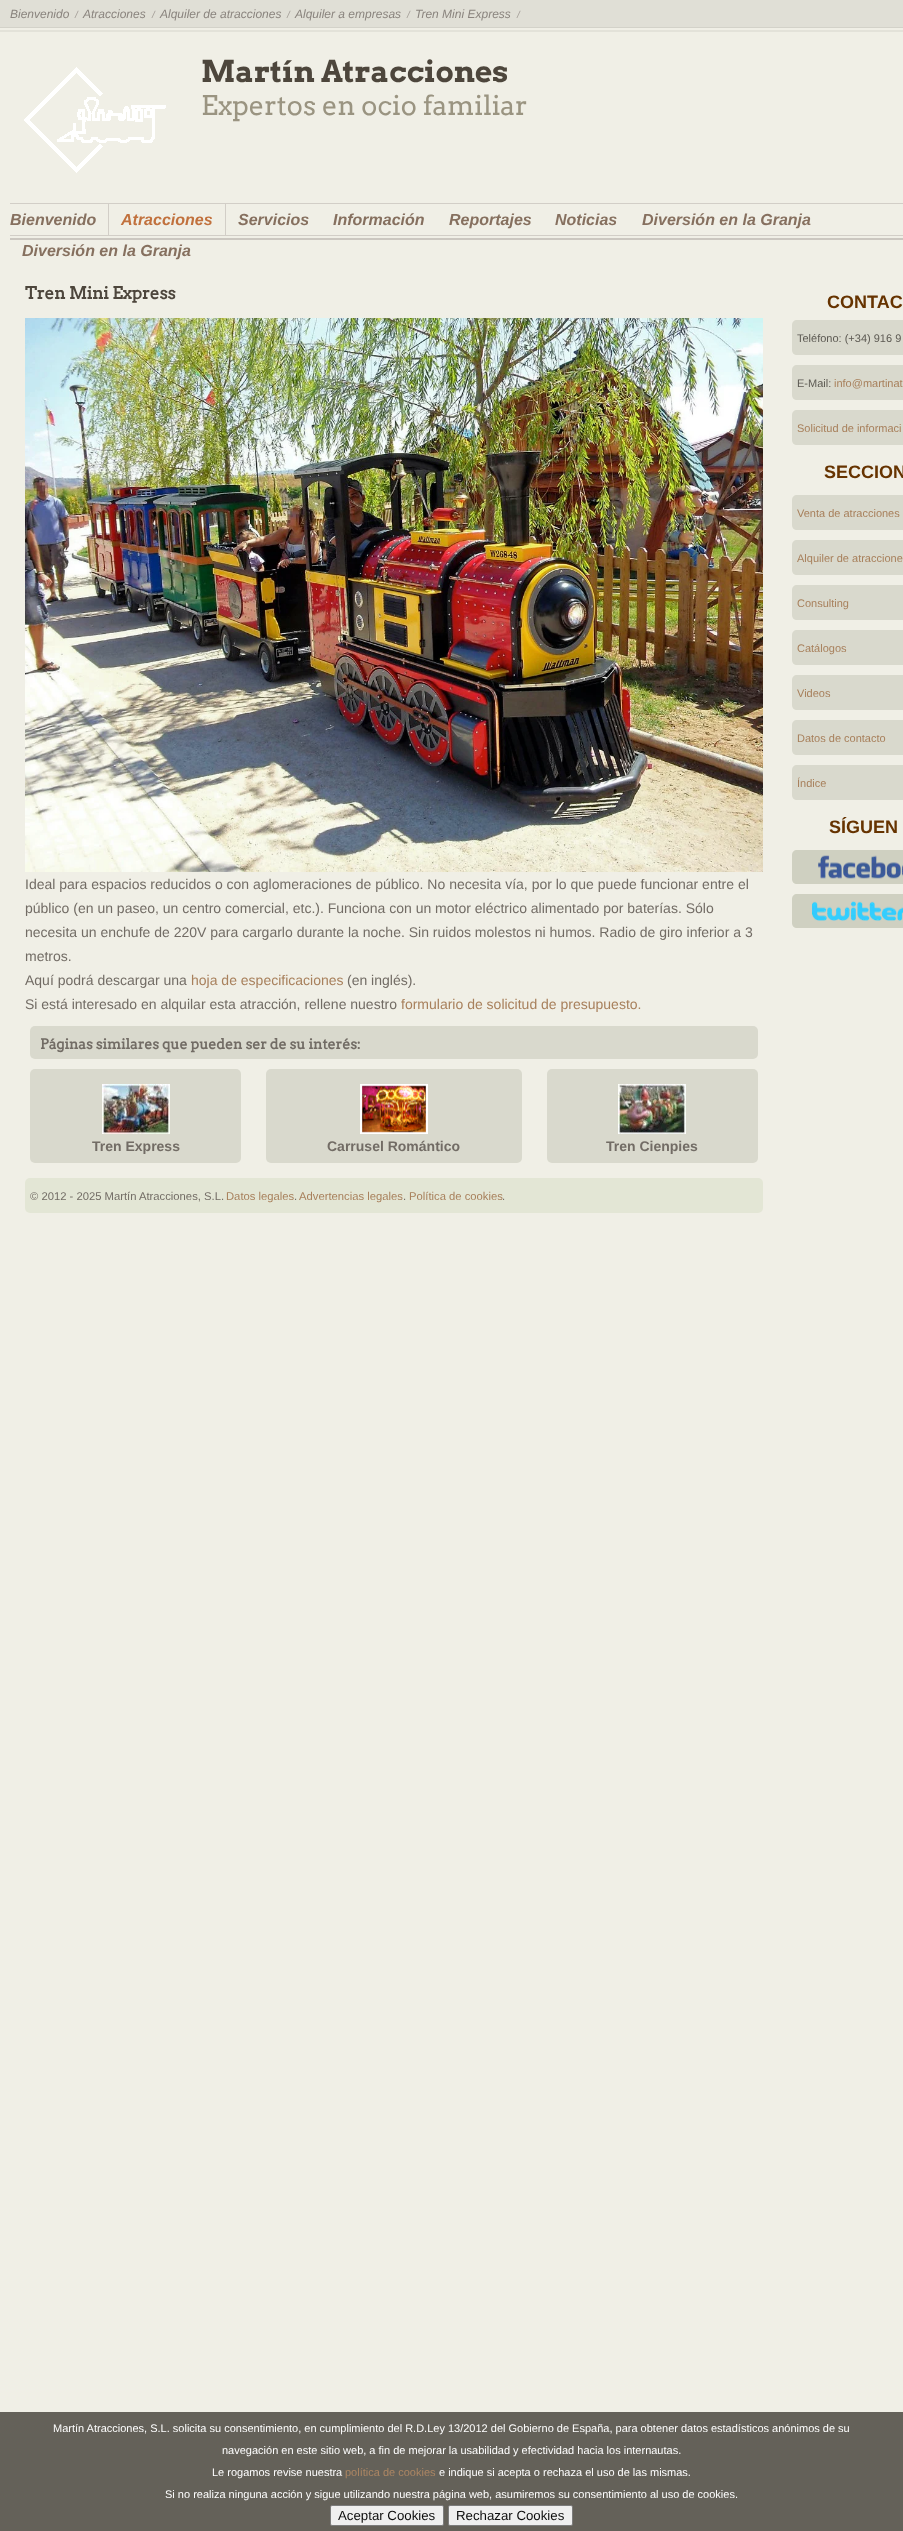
async function draw(canvas) {
	canvas.width = 903;
	canvas.height = 2531;
	const c = canvas.getContext('2d');
	c.miterLimit = 4;
	c.fontKerning = 'normal';
	async function loadImage(src) {
		const img = new Image();
		img.src = src;
		await img.decode();
		return img;
	}

	c.fillStyle = '#f0efe6';
	c.fillRect(0, 0, 903, 2531);
	c.fillStyle = '#e0dfd6';
	c.fillRect(0, 0, 903, 27);
	c.fillStyle = '#d3d2c9';
	c.fillRect(0, 27, 903, 1);
	c.font = 'italic 12px Liberation Sans';
	c.fillStyle = '#8a847e';
	c.fillText('Bienvenido', 10, 18);
	c.font = 'italic 10px Liberation Sans';
	c.fillStyle = '#a39d97';
	c.fillText('/', 75, 18);
	c.font = 'italic 12px Liberation Sans';
	c.fillStyle = '#8a847e';
	c.fillText('Atracciones', 83, 18);
	c.font = 'italic 10px Liberation Sans';
	c.fillStyle = '#a39d97';
	c.fillText('/', 152, 18);
	c.font = 'italic 12px Liberation Sans';
	c.fillStyle = '#8a847e';
	c.fillText('Alquiler de atracciones', 160, 18);
	c.font = 'italic 10px Liberation Sans';
	c.fillStyle = '#a39d97';
	c.fillText('/', 287, 18);
	c.font = 'italic 12px Liberation Sans';
	c.fillStyle = '#8a847e';
	c.fillText('Alquiler a empresas', 295, 18);
	c.font = 'italic 10px Liberation Sans';
	c.fillStyle = '#a39d97';
	c.fillText('/', 407, 18);
	c.font = 'italic 12px Liberation Sans';
	c.fillStyle = '#8a847e';
	c.fillText('Tren Mini Express', 415, 18);
	c.font = 'italic 10px Liberation Sans';
	c.fillStyle = '#a39d97';
	c.fillText('/', 517, 18);
	c.fillStyle = '#e3e2d9';
	c.fillRect(0, 30, 903, 2);
	c.drawImage(await loadImage('img1.png'), 24, 67, 142, 106);
	c.font = 'bold 30px Arvo';
	c.fillStyle = '#4d463c';
	c.fillText('Martín Atracciones', 201, 82);
	c.font = '27px Arvo';
	c.fillStyle = '#9a9481';
	c.fillText('Expertos en ocio familiar', 201, 115);
	for (const [x, y, w, h, color] of [
		[10, 203, 893, 1, '#d2cec7'],
		[10, 238, 893, 2, '#cbc7c0'],
		[10, 235, 893, 1, '#d2cec7'],
	]) {
		c.fillStyle = color;
		c.fillRect(x, y, w, h);
	}
	c.font = 'italic bold 16px Liberation Sans';
	c.fillStyle = '#86705f';
	c.fillText('Bienvenido', 10, 225);
	c.fillStyle = '#d2cec7';
	c.fillRect(225, 204, 1, 31);
	c.fillRect(108, 204, 1, 31);
	c.fillStyle = '#c1713d';
	c.fillText('Atracciones', 121, 225);
	c.fillStyle = '#86705f';
	for (const [text, x, y] of [
		['Servicios', 238, 225],
		['Información', 333, 225],
		['Reportajes', 449, 225],
		['Noticias', 555, 225],
		['Diversión en la Granja', 642, 225],
		['Diversión en la Granja', 22, 256],
	]) {
		c.fillText(text, x, y);
	}
	c.font = 'bold 16.75px "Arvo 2"';
	c.fillStyle = '#4d463c';
	c.fillText('Tren Mini Express', 25, 299);
	c.drawImage(await loadImage('img2.png'), 25, 318, 738, 554);
	c.font = '14px Liberation Sans';
	c.fillStyle = '#726c65';
	for (const [text, x, y] of [
		['Ideal para espacios reducidos o con aglomeraciones de público. No necesita vía, por lo que puede funcionar entre el', 25, 889],
		['público (en un paseo, un centro comercial, etc.). Funciona con un motor eléctrico alimentado por baterías. Sólo', 25, 913],
		['necesita un enchufe de 220V para cargarlo durante la noche. Sin ruidos molestos ni humos. Radio de giro inferior a 3', 25, 937],
		['metros.', 25, 961],
		['Aquí podrá descargar una', 25, 985],
	]) {
		c.fillText(text, x, y);
	}
	c.fillStyle = '#a8805c';
	c.fillText('hoja de especificaciones', 191, 985);
	c.fillStyle = '#726c65';
	c.fillText('(en inglés).', 347, 985);
	c.fillText('Si está interesado en alquilar esta atracción, rellene nuestro', 25, 1009);
	c.fillStyle = '#a8805c';
	c.fillText('formulario de solicitud de presupuesto.', 401, 1009);
	c.fillStyle = '#d9d9cd';
	c.beginPath();
	c.roundRect(30, 1026, 728, 33, 5);
	c.fill();
	c.font = 'bold 14px "Arvo 2"';
	c.fillStyle = '#726c65';
	c.fillText('Páginas similares que pueden ser de su interés:', 40, 1049);
	c.fillStyle = '#d9d9cd';
	c.beginPath();
	c.roundRect(30, 1069, 211, 94, 5);
	c.fill();
	c.drawImage(await loadImage('img3.png'), 102, 1084, 68, 50);
	c.font = 'bold 14px Liberation Sans';
	c.fillStyle = '#726c65';
	c.fillText('Tren Express', 92, 1151);
	c.fillStyle = '#d9d9cd';
	c.beginPath();
	c.roundRect(266, 1069, 256, 94, 5);
	c.fill();
	c.drawImage(await loadImage('img4.png'), 360, 1084, 68, 50);
	c.fillStyle = '#726c65';
	c.fillText('Carrusel Romántico', 327, 1151);
	c.fillStyle = '#d9d9cd';
	c.beginPath();
	c.roundRect(547, 1069, 211, 94, 5);
	c.fill();
	c.drawImage(await loadImage('img5.png'), 618, 1084, 68, 50);
	c.fillStyle = '#726c65';
	c.fillText('Tren Cienpies', 606, 1151);
	c.fillStyle = '#e3e6d5';
	c.beginPath();
	c.roundRect(25, 1178, 738, 35, 5);
	c.fill();
	c.font = '11.25px Liberation Sans';
	c.fillStyle = '#726c65';
	c.fillText('© 2012 - 2025 Martín Atracciones, S.L.', 30, 1200);
	c.fillStyle = '#a8805c';
	c.fillText('Datos legales', 226, 1200);
	c.fillStyle = '#726c65';
	c.fillText('.', 294, 1200);
	c.fillStyle = '#a8805c';
	c.fillText('Advertencias legales', 299, 1200);
	c.fillStyle = '#726c65';
	c.fillText('.', 403, 1200);
	c.fillStyle = '#a8805c';
	c.fillText('Política de cookies', 409, 1200);
	c.fillStyle = '#726c65';
	c.fillText('.', 502, 1200);
	c.font = 'bold 18px Liberation Sans';
	c.fillStyle = '#630';
	c.fillText('CONTAC', 827, 308);
	c.fillStyle = '#d9d9cd';
	c.beginPath();
	c.moveTo(797, 320);
	c.lineTo(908, 320);
	c.lineTo(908, 355);
	c.lineTo(797, 355);
	c.bezierCurveTo(794, 355, 792, 353, 792, 350);
	c.lineTo(792, 325);
	c.bezierCurveTo(792, 322, 794, 320, 797, 320);
	c.closePath();
	c.fill();
	c.font = '11px Liberation Sans';
	c.fillStyle = '#5c5952';
	c.fillText('Teléfono: (+34) 916 9', 797, 342);
	c.fillStyle = '#d9d9cd';
	c.beginPath();
	c.moveTo(797, 365);
	c.lineTo(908, 365);
	c.lineTo(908, 400);
	c.lineTo(797, 400);
	c.bezierCurveTo(794, 400, 792, 398, 792, 395);
	c.lineTo(792, 370);
	c.bezierCurveTo(792, 367, 794, 365, 797, 365);
	c.closePath();
	c.fill();
	c.fillStyle = '#5c5952';
	c.fillText('E-Mail:', 797, 387);
	c.fillStyle = '#a8805c';
	c.fillText('info@martinat', 834, 387);
	c.fillStyle = '#d9d9cd';
	c.beginPath();
	c.moveTo(797, 410);
	c.lineTo(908, 410);
	c.lineTo(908, 445);
	c.lineTo(797, 445);
	c.bezierCurveTo(794, 445, 792, 443, 792, 440);
	c.lineTo(792, 415);
	c.bezierCurveTo(792, 412, 794, 410, 797, 410);
	c.closePath();
	c.fill();
	c.fillStyle = '#a8805c';
	c.fillText('Solicitud de informaci', 797, 432);
	c.font = 'bold 18px Liberation Sans';
	c.fillStyle = '#630';
	c.fillText('SECCION', 824, 478);
	c.fillStyle = '#d9d9cd';
	c.beginPath();
	c.moveTo(797, 495);
	c.lineTo(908, 495);
	c.lineTo(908, 530);
	c.lineTo(797, 530);
	c.bezierCurveTo(794, 530, 792, 528, 792, 525);
	c.lineTo(792, 500);
	c.bezierCurveTo(792, 497, 794, 495, 797, 495);
	c.closePath();
	c.fill();
	c.font = '11px Liberation Sans';
	c.fillStyle = '#a8805c';
	c.fillText('Venta de atracciones', 797, 517);
	c.fillStyle = '#d9d9cd';
	c.beginPath();
	c.moveTo(797, 540);
	c.lineTo(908, 540);
	c.lineTo(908, 575);
	c.lineTo(797, 575);
	c.bezierCurveTo(794, 575, 792, 573, 792, 570);
	c.lineTo(792, 545);
	c.bezierCurveTo(792, 542, 794, 540, 797, 540);
	c.closePath();
	c.fill();
	c.fillStyle = '#a8805c';
	c.fillText('Alquiler de atraccione', 797, 562);
	c.fillStyle = '#d9d9cd';
	c.beginPath();
	c.moveTo(797, 585);
	c.lineTo(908, 585);
	c.lineTo(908, 620);
	c.lineTo(797, 620);
	c.bezierCurveTo(794, 620, 792, 618, 792, 615);
	c.lineTo(792, 590);
	c.bezierCurveTo(792, 587, 794, 585, 797, 585);
	c.closePath();
	c.fill();
	c.fillStyle = '#a8805c';
	c.fillText('Consulting', 797, 607);
	c.fillStyle = '#d9d9cd';
	c.beginPath();
	c.moveTo(797, 630);
	c.lineTo(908, 630);
	c.lineTo(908, 665);
	c.lineTo(797, 665);
	c.bezierCurveTo(794, 665, 792, 663, 792, 660);
	c.lineTo(792, 635);
	c.bezierCurveTo(792, 632, 794, 630, 797, 630);
	c.closePath();
	c.fill();
	c.fillStyle = '#a8805c';
	c.fillText('Catálogos', 797, 652);
	c.fillStyle = '#d9d9cd';
	c.beginPath();
	c.moveTo(797, 675);
	c.lineTo(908, 675);
	c.lineTo(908, 710);
	c.lineTo(797, 710);
	c.bezierCurveTo(794, 710, 792, 708, 792, 705);
	c.lineTo(792, 680);
	c.bezierCurveTo(792, 677, 794, 675, 797, 675);
	c.closePath();
	c.fill();
	c.fillStyle = '#a8805c';
	c.fillText('Videos', 797, 697);
	c.fillStyle = '#d9d9cd';
	c.beginPath();
	c.moveTo(797, 720);
	c.lineTo(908, 720);
	c.lineTo(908, 755);
	c.lineTo(797, 755);
	c.bezierCurveTo(794, 755, 792, 753, 792, 750);
	c.lineTo(792, 725);
	c.bezierCurveTo(792, 722, 794, 720, 797, 720);
	c.closePath();
	c.fill();
	c.fillStyle = '#a8805c';
	c.fillText('Datos de contacto', 797, 742);
	c.fillStyle = '#d9d9cd';
	c.beginPath();
	c.moveTo(797, 765);
	c.lineTo(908, 765);
	c.lineTo(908, 800);
	c.lineTo(797, 800);
	c.bezierCurveTo(794, 800, 792, 798, 792, 795);
	c.lineTo(792, 770);
	c.bezierCurveTo(792, 767, 794, 765, 797, 765);
	c.closePath();
	c.fill();
	c.fillStyle = '#a8805c';
	c.fillText('Índice', 797, 787);
	c.font = 'bold 18px Liberation Sans';
	c.fillStyle = '#630';
	c.fillText('SÍGUEN', 829, 833);
	c.fillStyle = '#cfd0c1';
	c.beginPath();
	c.moveTo(797, 850);
	c.lineTo(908, 850);
	c.lineTo(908, 884);
	c.lineTo(797, 884);
	c.bezierCurveTo(794, 884, 792, 882, 792, 879);
	c.lineTo(792, 855);
	c.bezierCurveTo(792, 852, 794, 850, 797, 850);
	c.closePath();
	c.fill();
	c.drawImage(await loadImage('img6.png'), 818, 855, 85, 24);
	c.beginPath();
	c.moveTo(797, 894);
	c.lineTo(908, 894);
	c.lineTo(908, 928);
	c.lineTo(797, 928);
	c.bezierCurveTo(794, 928, 792, 926, 792, 923);
	c.lineTo(792, 899);
	c.bezierCurveTo(792, 896, 794, 894, 797, 894);
	c.closePath();
	c.fill();
	c.drawImage(await loadImage('img7.png'), 812, 901, 91, 20);
	c.fillStyle = '#646159';
	c.fillRect(0, 2412, 903, 119);
	c.font = '11px Liberation Sans';
	c.fillStyle = '#fefefe';
	for (const [text, x, y] of [
		['Martín Atracciones, S.L. solicita su consentimiento, en cumplimiento del R.D.Ley 13/2012 del Gobierno de España, para obtener datos estadísticos anónimos de su', 53, 2432],
		['navegación en este sitio web, a fin de mejorar la usabilidad y efectividad hacia los internautas.', 222, 2454],
		['Le rogamos revise nuestra', 212, 2476],
	]) {
		c.fillText(text, x, y);
	}
	c.fillStyle = '#ac8663';
	c.fillText('política de cookies', 345, 2476);
	c.fillStyle = '#fefefe';
	c.fillText('e indique si acepta o rechaza el uso de las mismas.', 439, 2476);
	c.fillText('Si no realiza ninguna acción y sigue utilizando nuestra página web, asumiremos su consentimiento al uso de cookies.', 165, 2498);
	c.fillStyle = '#efefef';
	c.beginPath();
	c.roundRect(330.5, 2505.5, 113, 20, 1.5);
	c.fill();
	c.strokeStyle = '#7c7c7c';
	c.stroke();
	c.font = '13.25px Liberation Sans';
	c.fillStyle = '#0c0c0c';
	c.fillText('Aceptar Cookies', 338, 2520);
	c.fillStyle = '#efefef';
	c.beginPath();
	c.roundRect(448.5, 2505.5, 124, 20, 1.5);
	c.fill();
	c.stroke();
	c.fillStyle = '#0c0c0c';
	c.fillText('Rechazar Cookies', 456, 2520);
}

draw(document.querySelector('canvas'));
